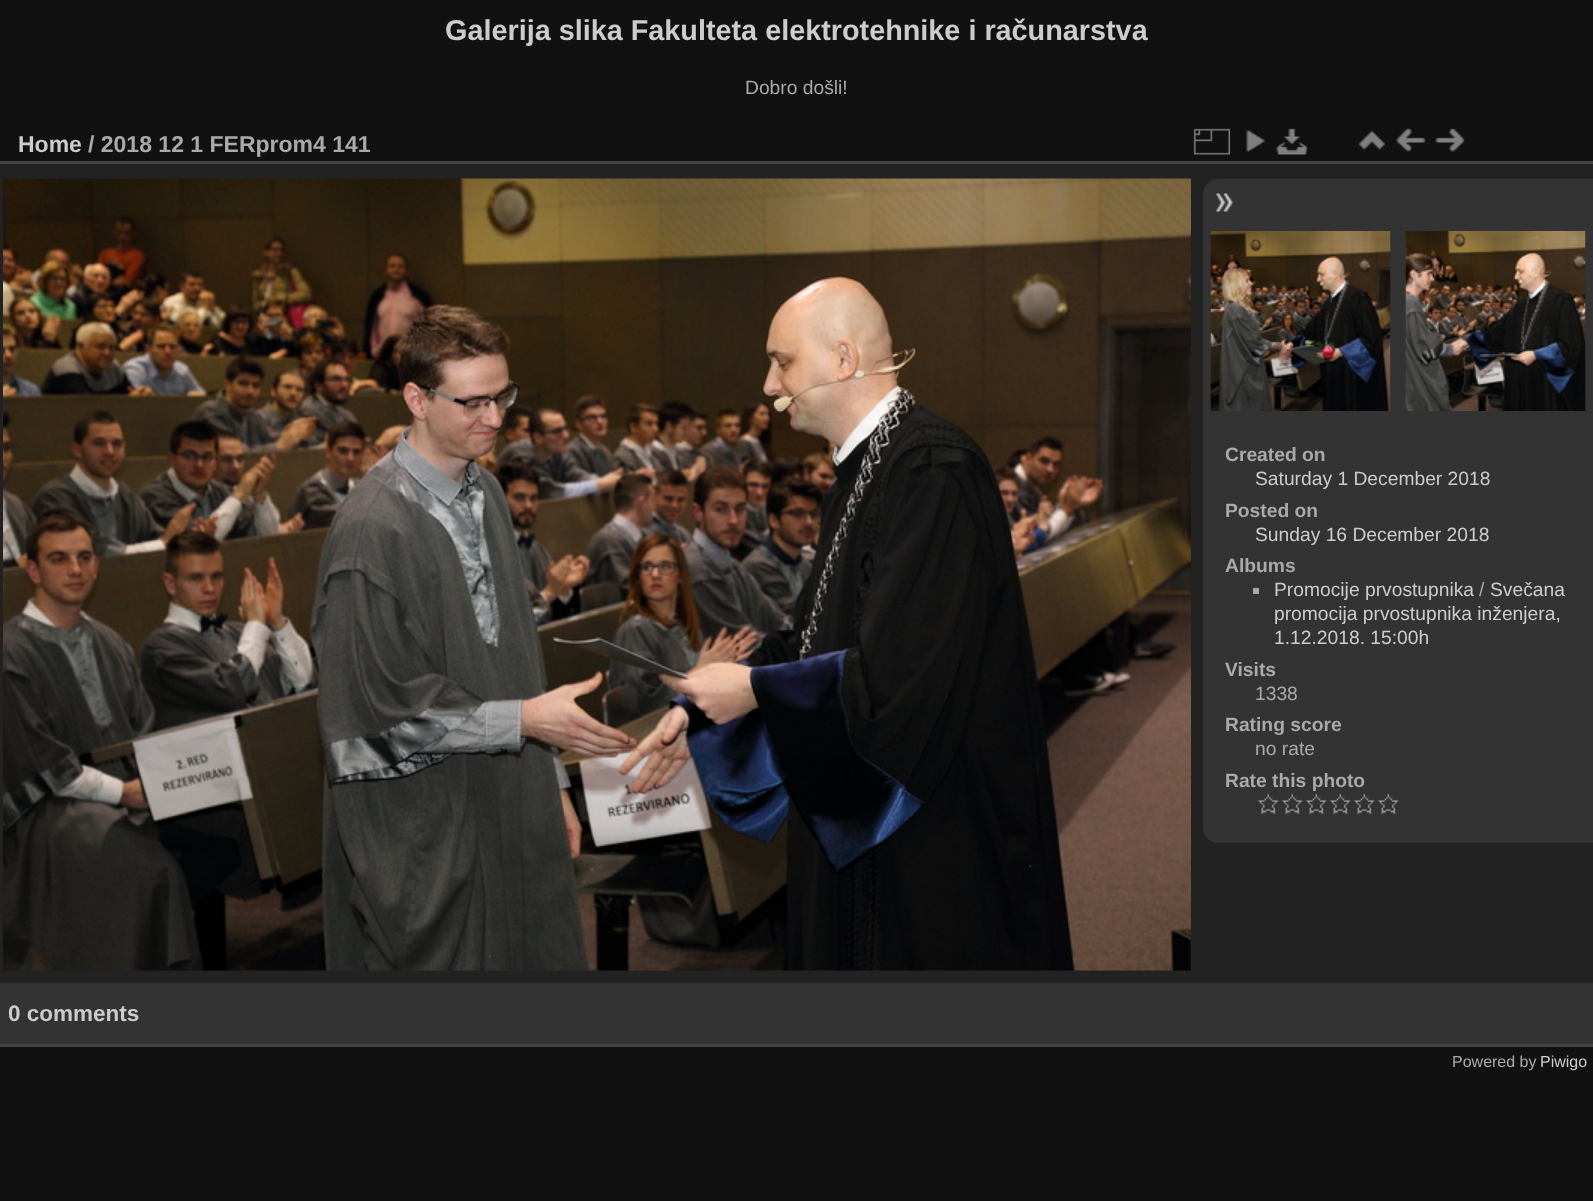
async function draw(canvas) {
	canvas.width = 1593;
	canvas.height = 1201;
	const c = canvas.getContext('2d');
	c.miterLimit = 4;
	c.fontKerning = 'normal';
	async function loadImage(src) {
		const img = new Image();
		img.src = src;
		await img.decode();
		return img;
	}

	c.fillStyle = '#111';
	c.fillRect(0, 0, 1593, 1201);
	c.font = 'bold 28.8px Liberation Sans';
	c.fillStyle = '#ccc';
	c.fillText('Galerija slika Fakulteta elektrotehnike i računarstva', 445, 40);
	c.font = '19.25px Liberation Sans';
	c.fillStyle = '#aaa';
	c.fillText('Dobro došli!', 745, 94);
	for (const [x, y, w, h, color] of [
		[0, 164, 1593, 819, '#222'],
		[0, 1044, 1593, 3, '#444'],
		[0, 161, 1593, 3, '#444'],
	]) {
		c.fillStyle = color;
		c.fillRect(x, y, w, h);
	}
	c.font = 'bold 23px Liberation Sans';
	c.fillStyle = '#ccc';
	c.fillText('Home', 18, 152);
	c.fillStyle = '#aaa';
	c.fillText('/ 2018 12 1 FERprom4 141', 88, 152);
	c.drawImage(await loadImage('img1.png'), 1193, 128, 37, 27);
	c.drawImage(await loadImage('img2.png'), 1246, 130, 19, 22);
	c.drawImage(await loadImage('img3.png'), 1276, 128, 32, 27);
	c.drawImage(await loadImage('img4.png'), 1358, 130, 27, 21);
	c.drawImage(await loadImage('img5.png'), 1396, 128, 30, 24);
	c.drawImage(await loadImage('img6.png'), 1435, 128, 30, 24);
	c.drawImage(await loadImage('img7.png'), 3, 178, 1188, 793);
	c.fillStyle = '#333';
	c.beginPath();
	c.roundRect(1203, 179, 390, 664, [15, 0, 0, 15]);
	c.fill();
	c.drawImage(await loadImage('img8.png'), 1215, 193, 19, 19);
	c.drawImage(await loadImage('img9.png'), 1210, 231, 181, 180);
	c.drawImage(await loadImage('img10.png'), 1405, 231, 181, 180);
	c.font = 'bold 19.25px Liberation Sans';
	c.fillStyle = '#aaa';
	c.fillText('Created on', 1225, 461);
	c.font = '19.25px Liberation Sans';
	c.fillStyle = '#ccc';
	c.fillText('Saturday 1 December 2018', 1255, 485);
	c.font = 'bold 19.25px Liberation Sans';
	c.fillStyle = '#aaa';
	c.fillText('Posted on', 1225, 517);
	c.font = '19.25px Liberation Sans';
	c.fillStyle = '#ccc';
	c.fillText('Sunday 16 December 2018', 1255, 541);
	c.font = 'bold 19.25px Liberation Sans';
	c.fillStyle = '#aaa';
	c.fillText('Albums', 1225, 572);
	c.fillRect(1253, 588, 6, 6);
	c.font = '19.25px Liberation Sans';
	c.fillStyle = '#ccc';
	c.fillText('Promocije prvostupnika', 1274, 596);
	c.fillStyle = '#aaa';
	c.fillText('/', 1479, 596);
	c.fillStyle = '#ccc';
	for (const [text, x, y] of [
		['Svečana', 1490, 596],
		['promocija prvostupnika inženjera,', 1274, 620],
		['1.12.2018. 15:00h', 1274, 644],
	]) {
		c.fillText(text, x, y);
	}
	c.font = 'bold 19.25px Liberation Sans';
	c.fillStyle = '#aaa';
	c.fillText('Visits', 1225, 676);
	c.font = '19.25px Liberation Sans';
	c.fillText('1338', 1255, 700);
	c.font = 'bold 19.25px Liberation Sans';
	c.fillText('Rating score', 1225, 731);
	c.font = '19.25px Liberation Sans';
	c.fillText('no rate', 1255, 755);
	c.font = 'bold 19.25px Liberation Sans';
	c.fillText('Rate this photo', 1225, 787);
	c.drawImage(await loadImage('img11.png'), 1258, 794, 21, 20);
	c.drawImage(await loadImage('img12.png'), 1282, 794, 21, 20);
	c.drawImage(await loadImage('img13.png'), 1306, 794, 21, 20);
	c.drawImage(await loadImage('img13.png'), 1330, 794, 21, 20);
	c.drawImage(await loadImage('img13.png'), 1354, 794, 21, 20);
	c.drawImage(await loadImage('img13.png'), 1378, 794, 21, 20);
	c.fillStyle = '#333';
	c.fillRect(0, 983, 1593, 61);
	c.font = 'bold 22.5px Liberation Sans';
	c.fillStyle = '#ccc';
	c.fillText('0 comments', 8, 1021);
	c.font = '16px Liberation Sans';
	c.fillStyle = '#aaa';
	c.fillText('Powered by', 1452, 1067);
	c.fillStyle = '#ccc';
	c.fillText('Piwigo', 1540, 1067);
}

draw(document.querySelector('canvas'));
